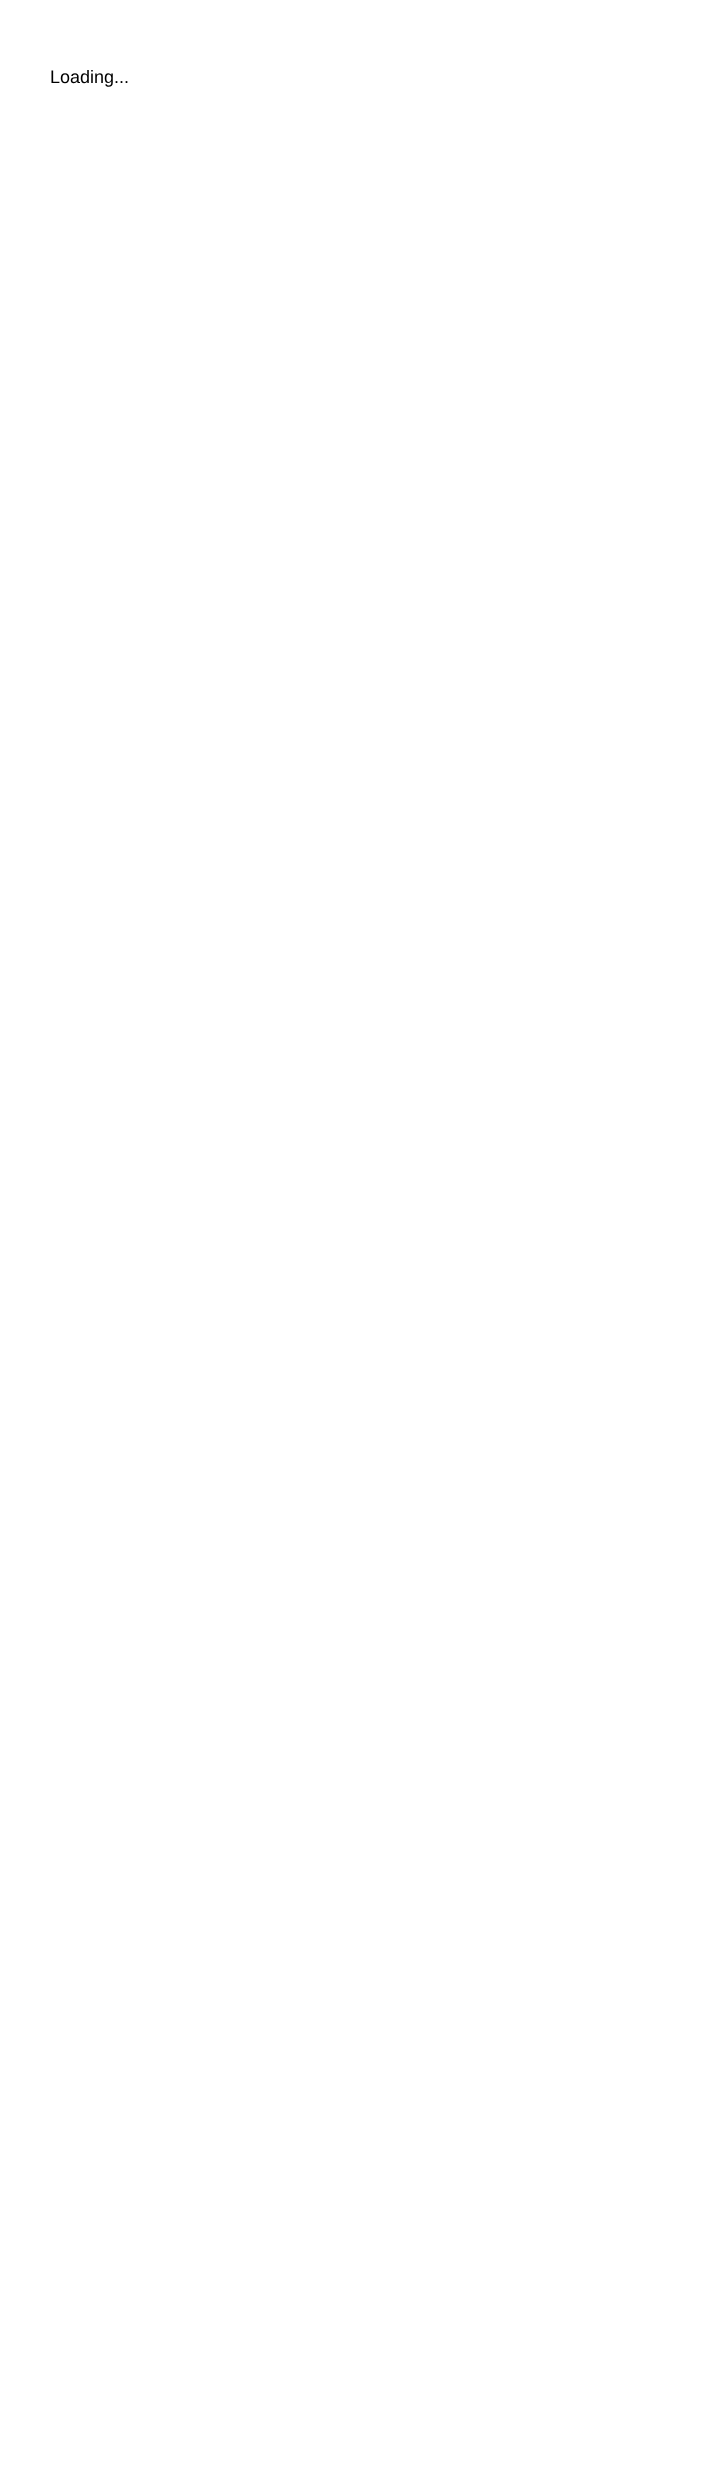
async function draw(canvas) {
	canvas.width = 724;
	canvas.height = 2481;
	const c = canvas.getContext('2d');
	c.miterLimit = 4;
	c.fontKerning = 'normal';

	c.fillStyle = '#fff';
	c.fillRect(0, 0, 724, 2481);
	c.font = '18px Liberation Sans';
	c.fillStyle = '#000';
	c.fillText('Loading...', 50, 83);
}

draw(document.querySelector('canvas'));
